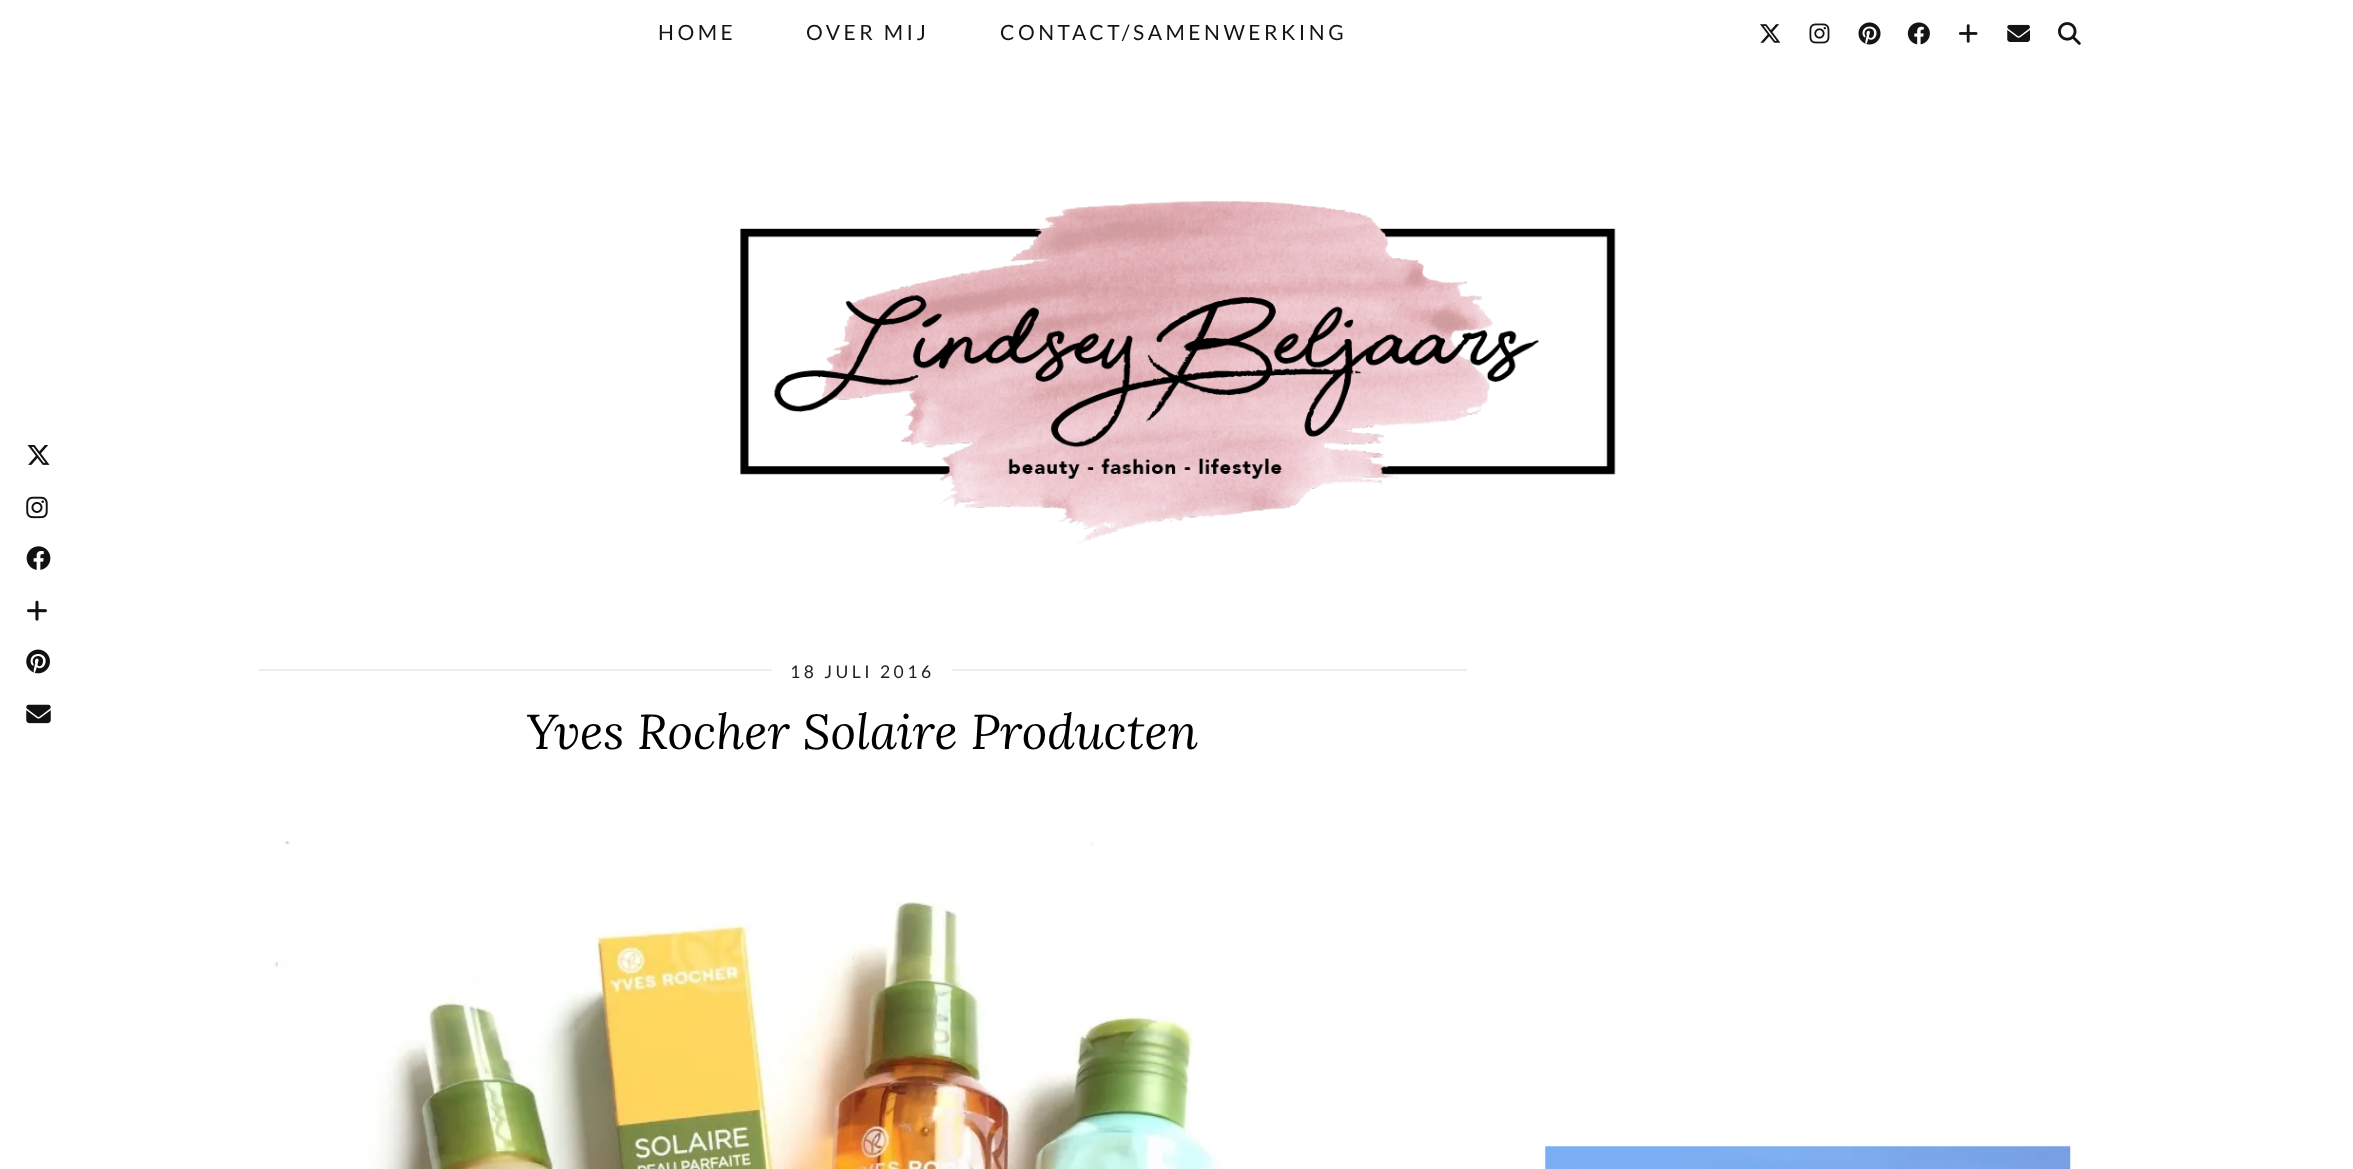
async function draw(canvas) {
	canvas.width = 2353;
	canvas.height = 1169;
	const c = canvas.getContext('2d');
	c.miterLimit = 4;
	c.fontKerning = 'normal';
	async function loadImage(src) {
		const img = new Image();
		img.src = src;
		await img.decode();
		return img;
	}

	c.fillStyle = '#fff';
	c.fillRect(0, 0, 2353, 1169);
	c.letterSpacing = '3.5px';
	c.font = '21px Lato';
	c.fillStyle = '#141414';
	for (const [text, x, y] of [
		['HOME', 658, 40],
		['OVER MIJ', 806, 40],
		['CONTACT/SAMENWERKING', 1000, 40],
	]) {
		c.fillText(text, x, y);
	}
	c.drawImage(await loadImage('img1.png'), 1760, 24, 21, 19);
	c.drawImage(await loadImage('img2.png'), 1809, 23, 21, 21);
	c.drawImage(await loadImage('img3.png'), 1858, 22, 23, 23);
	c.drawImage(await loadImage('img4.png'), 1907, 22, 23, 23);
	c.drawImage(await loadImage('img5.png'), 1959, 24, 19, 19);
	c.drawImage(await loadImage('img6.png'), 2007, 24, 23, 18);
	c.drawImage(await loadImage('img7.png'), 2058, 22, 23, 23);
	c.drawImage(await loadImage('img8.png'), 740, 201, 876, 344);
	c.drawImage(await loadImage('img9.png'), 27, 445, 23, 20);
	c.drawImage(await loadImage('img10.png'), 26, 496, 22, 23);
	c.drawImage(await loadImage('img11.png'), 26, 546, 25, 24);
	c.drawImage(await loadImage('img12.png'), 27, 600, 20, 21);
	c.drawImage(await loadImage('img13.png'), 26, 649, 24, 25);
	c.drawImage(await loadImage('img14.png'), 26, 704, 25, 20);
	c.fillStyle = '#eee';
	c.fillRect(259, 669, 1208, 2);
	c.fillStyle = '#fff';
	c.fillRect(772, 669, 180, 2);
	c.font = '17.5px Lato';
	c.fillStyle = '#222';
	c.fillText('18 JULI 2016', 790, 678);
	c.letterSpacing = '0px';
	c.font = 'italic 49px Lora';
	c.fillStyle = '#000';
	c.fillText('Yves Rocher Solaire Producten', 526, 749);
	c.drawImage(await loadImage('img15.png'), 273, 841, 948, 328);
	c.drawImage(await loadImage('img16.png'), 1545, 1146, 526, 23);
}

draw(document.querySelector('canvas'));
